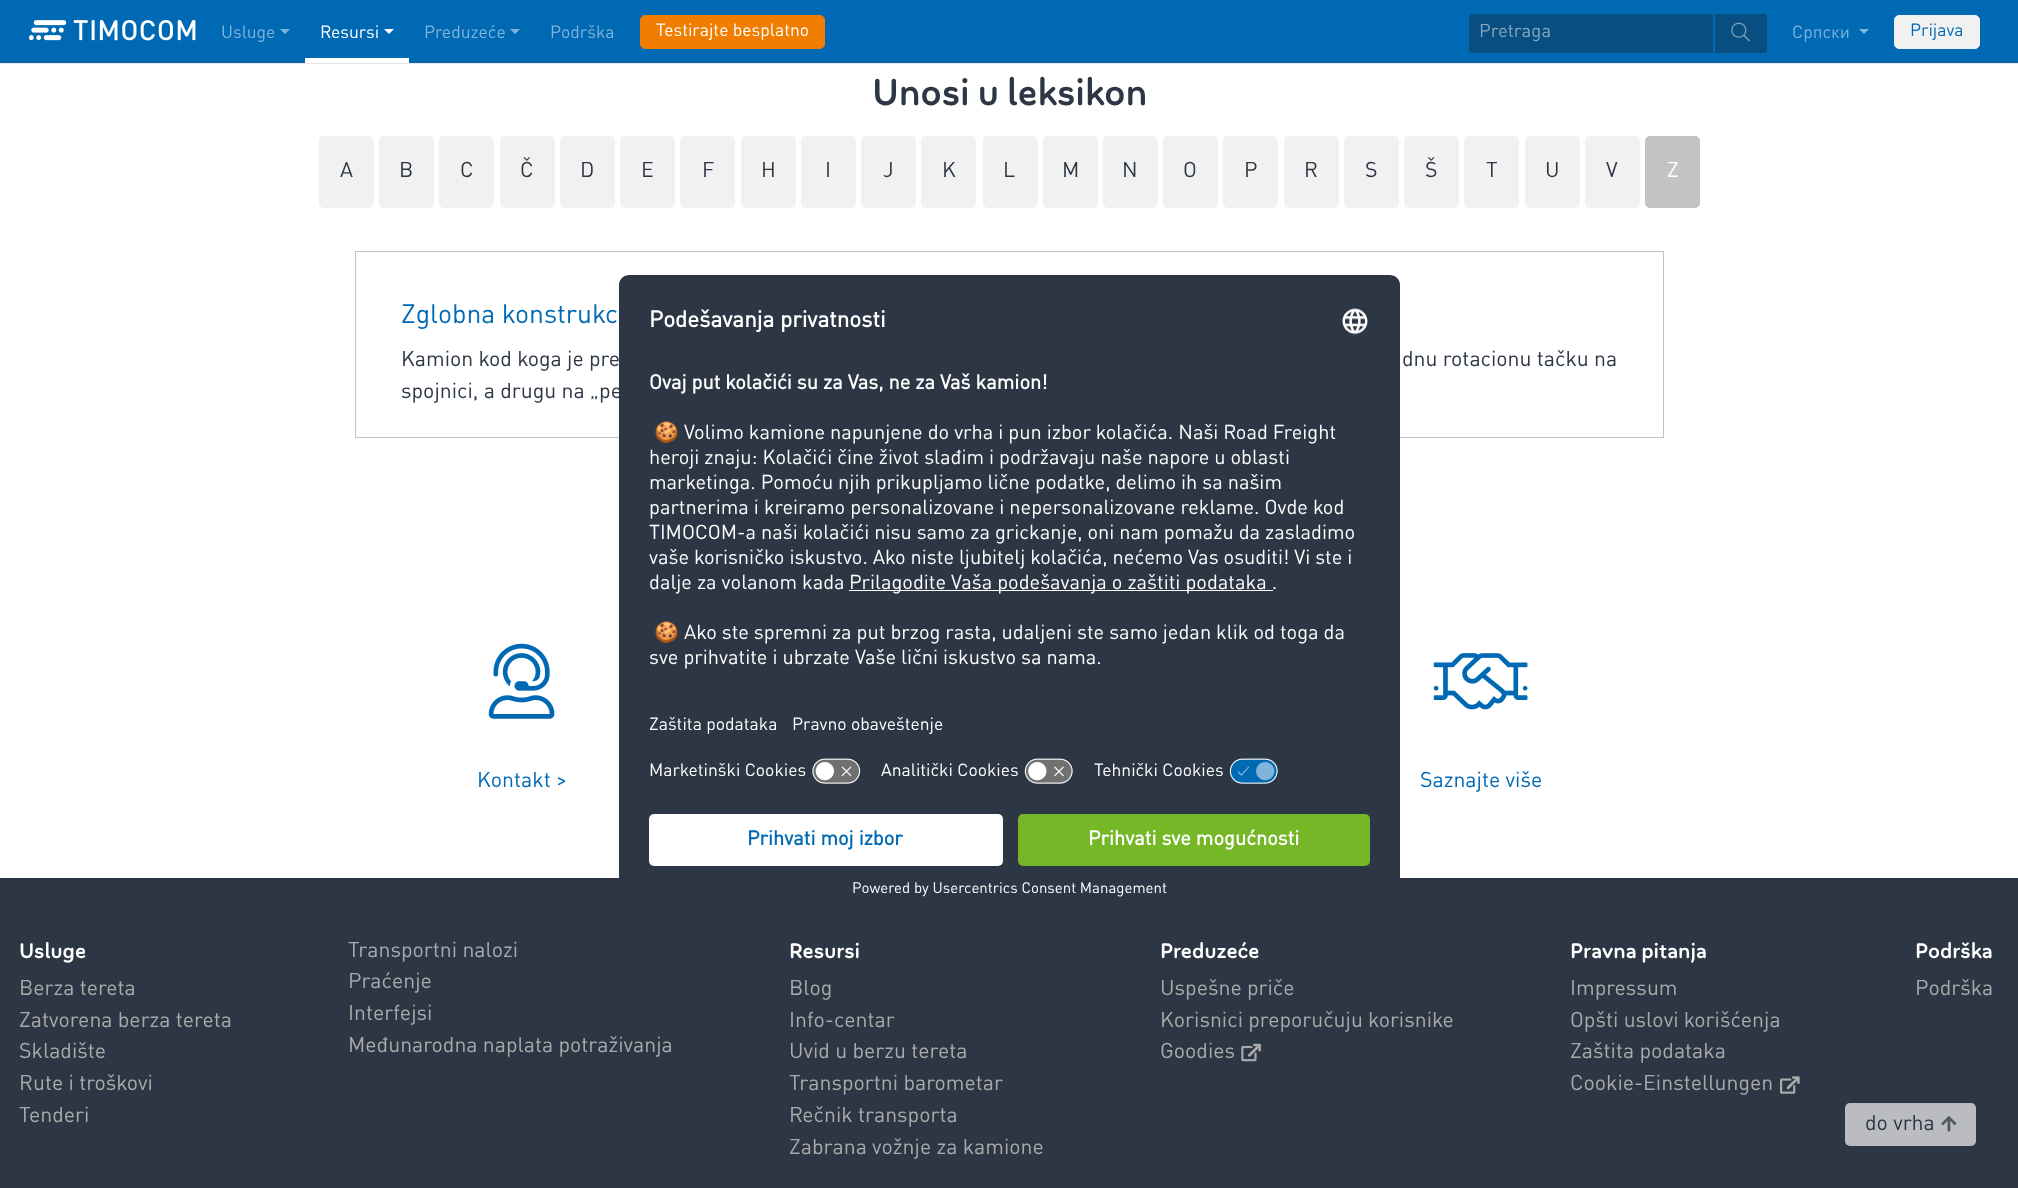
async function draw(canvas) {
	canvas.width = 2018;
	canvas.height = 1188;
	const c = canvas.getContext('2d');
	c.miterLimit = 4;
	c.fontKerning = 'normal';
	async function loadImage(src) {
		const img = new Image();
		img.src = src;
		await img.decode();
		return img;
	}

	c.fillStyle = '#2c3644';
	c.fillRect(0, 0, 2018, 1188);
	c.fillStyle = '#e6e6e6';
	c.beginPath();
	c.moveTo(0, 62);
	c.lineTo(0, 64);
	c.lineTo(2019, 64);
	c.lineTo(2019, 1);
	c.lineTo(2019, 62);
	c.closePath();
	c.fill();
	c.fillStyle = '#0069b4';
	c.fillRect(0, 0, 2018, 63);
	c.fillStyle = '#005fa2';
	c.fillRect(0, 61, 2018, 1);
	c.drawImage(await loadImage('img1.png'), 29, 20, 167, 21);
	c.font = '17.5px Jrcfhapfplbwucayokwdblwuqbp';
	c.fillStyle = '#80b4da';
	c.fillText('Usluge', 221, 38);
	c.beginPath();
	c.moveTo(280, 29);
	c.lineTo(290, 29);
	c.lineTo(285, 34);
	c.closePath();
	c.fill();
	c.fillStyle = '#fff';
	c.fillRect(305, 58, 104, 5);
	c.fillText('Resursi', 320, 38);
	c.beginPath();
	c.moveTo(384, 29);
	c.lineTo(394, 29);
	c.lineTo(389, 34);
	c.closePath();
	c.fill();
	c.fillStyle = '#80b4da';
	c.fillText('Preduzeće', 424, 38);
	c.beginPath();
	c.moveTo(510, 29);
	c.lineTo(520, 29);
	c.lineTo(515, 34);
	c.closePath();
	c.fill();
	c.fillText('Podrška', 550, 38);
	c.fillStyle = '#f07c00';
	c.beginPath();
	c.roundRect(640.5, 15.5, 184, 33, 4.5);
	c.fill();
	c.strokeStyle = '#f07c00';
	c.stroke();
	c.fillStyle = '#fff';
	c.fillText('Testirajte besplatno', 656, 36);
	c.fillStyle = '#084e80';
	c.beginPath();
	c.roundRect(1469, 14, 244, 39, [2.5, 0, 0, 2.5]);
	c.fill();
	c.beginPath();
	c.roundRect(1468.5, 13.5, 245, 40, [3.5, 0, 0, 3.5]);
	c.strokeStyle = '#0069b4';
	c.stroke();
	c.save();
	c.beginPath();
	c.rect(1479, 24, 224, 19);
	c.clip();
	c.font = '18.5px Jrcfhapfplbwucayokwdblwuqbp';
	c.fillStyle = '#84a7c0';
	c.fillText('Pretraga', 1479, 37);
	c.restore();
	c.beginPath();
	c.roundRect(1714.5, 13.5, 53, 40, [0, 3.5, 3.5, 0]);
	c.fill();
	c.stroke();
	c.drawImage(await loadImage('img2.png'), 1731, 22, 19, 20);
	c.fillStyle = '#80b4da';
	c.fillText('Српски', 1792, 38);
	c.beginPath();
	c.moveTo(1859, 29);
	c.lineTo(1869, 29);
	c.lineTo(1864, 34);
	c.closePath();
	c.fill();
	c.fillStyle = '#f1f1f1';
	c.beginPath();
	c.roundRect(1894.5, 15.5, 85, 33, 4.5);
	c.fill();
	c.strokeStyle = '#f1f1f1';
	c.stroke();
	c.fillStyle = '#0069b4';
	c.fillText('Prijava', 1910, 36);
	c.fillStyle = '#fff';
	c.fillRect(0, 64, 2018, 814);
	c.font = '500 37.5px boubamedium';
	c.fillStyle = '#2c3644';
	c.fillText('Unosi u leksikon', 872, 105);
	c.fillStyle = '#f1f1f1';
	c.beginPath();
	c.roundRect(319, 136, 55, 72, 5);
	c.fill();
	c.font = '21.25px Jrcfhapfplbwucayokwdblwuqbp';
	c.fillStyle = '#2c3644';
	c.fillText('A', 340, 177);
	c.fillStyle = '#f1f1f1';
	c.beginPath();
	c.roundRect(379, 136, 55, 72, 5);
	c.fill();
	c.fillStyle = '#2c3644';
	c.fillText('B', 399, 177);
	c.fillStyle = '#f1f1f1';
	c.beginPath();
	c.roundRect(439, 136, 55, 72, 5);
	c.fill();
	c.fillStyle = '#2c3644';
	c.fillText('C', 460, 177);
	c.fillStyle = '#f1f1f1';
	c.beginPath();
	c.roundRect(500, 136, 55, 72, 5);
	c.fill();
	c.fillStyle = '#2c3644';
	c.fillText('Č', 520, 177);
	c.fillStyle = '#f1f1f1';
	c.beginPath();
	c.roundRect(560, 136, 55, 72, 5);
	c.fill();
	c.fillStyle = '#2c3644';
	c.fillText('D', 580, 177);
	c.fillStyle = '#f1f1f1';
	c.beginPath();
	c.roundRect(620, 136, 55, 72, 5);
	c.fill();
	c.fillStyle = '#2c3644';
	c.fillText('E', 641, 177);
	c.fillStyle = '#f1f1f1';
	c.beginPath();
	c.roundRect(680, 136, 55, 72, 5);
	c.fill();
	c.fillStyle = '#2c3644';
	c.fillText('F', 702, 177);
	c.fillStyle = '#f1f1f1';
	c.beginPath();
	c.roundRect(741, 136, 55, 72, 5);
	c.fill();
	c.fillStyle = '#2c3644';
	c.fillText('H', 761, 177);
	c.fillStyle = '#f1f1f1';
	c.beginPath();
	c.roundRect(801, 136, 55, 72, 5);
	c.fill();
	c.fillStyle = '#2c3644';
	c.fillText('I', 825, 177);
	c.fillStyle = '#f1f1f1';
	c.beginPath();
	c.roundRect(861, 136, 55, 72, 5);
	c.fill();
	c.fillStyle = '#2c3644';
	c.fillText('J', 883, 177);
	c.fillStyle = '#f1f1f1';
	c.beginPath();
	c.roundRect(921, 136, 55, 72, 5);
	c.fill();
	c.fillStyle = '#2c3644';
	c.fillText('K', 942, 177);
	c.fillStyle = '#f1f1f1';
	c.beginPath();
	c.roundRect(983, 136, 55, 72, 5);
	c.fill();
	c.fillStyle = '#2c3644';
	c.fillText('L', 1003, 177);
	c.fillStyle = '#f1f1f1';
	c.beginPath();
	c.roundRect(1043, 136, 55, 72, 5);
	c.fill();
	c.fillStyle = '#2c3644';
	c.fillText('M', 1062, 177);
	c.fillStyle = '#f1f1f1';
	c.beginPath();
	c.roundRect(1103, 136, 55, 72, 5);
	c.fill();
	c.fillStyle = '#2c3644';
	c.fillText('N', 1122, 177);
	c.fillStyle = '#f1f1f1';
	c.beginPath();
	c.roundRect(1163, 136, 55, 72, 5);
	c.fill();
	c.fillStyle = '#2c3644';
	c.fillText('O', 1183, 177);
	c.fillStyle = '#f1f1f1';
	c.beginPath();
	c.roundRect(1223, 136, 55, 72, 5);
	c.fill();
	c.fillStyle = '#2c3644';
	c.fillText('P', 1244, 177);
	c.fillStyle = '#f1f1f1';
	c.beginPath();
	c.roundRect(1284, 136, 55, 72, 5);
	c.fill();
	c.fillStyle = '#2c3644';
	c.fillText('R', 1304, 177);
	c.fillStyle = '#f1f1f1';
	c.beginPath();
	c.roundRect(1344, 136, 55, 72, 5);
	c.fill();
	c.fillStyle = '#2c3644';
	c.fillText('S', 1365, 177);
	c.fillStyle = '#f1f1f1';
	c.beginPath();
	c.roundRect(1404, 136, 55, 72, 5);
	c.fill();
	c.fillStyle = '#2c3644';
	c.fillText('Š', 1425, 177);
	c.fillStyle = '#f1f1f1';
	c.beginPath();
	c.roundRect(1464, 136, 55, 72, 5);
	c.fill();
	c.fillStyle = '#2c3644';
	c.fillText('T', 1486, 177);
	c.fillStyle = '#f1f1f1';
	c.beginPath();
	c.roundRect(1525, 136, 55, 72, 5);
	c.fill();
	c.fillStyle = '#2c3644';
	c.fillText('U', 1545, 177);
	c.fillStyle = '#f1f1f1';
	c.beginPath();
	c.roundRect(1585, 136, 55, 72, 5);
	c.fill();
	c.fillStyle = '#2c3644';
	c.fillText('V', 1606, 177);
	c.fillStyle = '#c3c3c3';
	c.beginPath();
	c.roundRect(1645, 136, 55, 72, 5);
	c.fill();
	c.fillStyle = '#fff';
	c.fillText('Z', 1667, 177);
	c.strokeStyle = '#c3c3c3';
	c.strokeRect(355.5, 251.5, 1308, 186);
	c.font = '26.5px Jrcfhapfplbwucayokwdblwuqbp';
	c.fillStyle = '#0069b4';
	c.fillText('Zglobna konstrukc', 401, 323);
	c.font = '21.25px Jrcfhapfplbwucayokwdblwuqbp';
	c.fillStyle = '#2c3644';
	for (const [text, x, y] of [
		['Kamion kod koga je pre', 401, 366],
		['dnu rotacionu tačku na', 1402, 366],
		['spojnici, a drugu na „pe', 401, 398],
	]) {
		c.fillText(text, x, y);
	}
	c.drawImage(await loadImage('img3.png'), 488, 643, 67, 76);
	c.fillStyle = '#0069b4';
	c.fillText('Kontakt >', 477, 787);
	c.drawImage(await loadImage('img4.png'), 1433, 653, 95, 57);
	c.fillText('Saznajte više', 1420, 787);
	c.fillStyle = '#2c3644';
	c.beginPath();
	c.roundRect(619, 275, 781, 639, 10);
	c.fill();
	c.save();
	c.beginPath();
	c.roundRect(619, 275, 781, 639, 10);
	c.clip();
	c.beginPath();
	c.roundRect(619, 275, 781, 529, [10, 10, 0, 0]);
	c.clip();
	c.fillRect(619, 276, 781, 528);
	c.fillRect(619, 276, 781, 478);
	c.restore();
	c.font = 'bold 22.5px Jrcfhapfplbwucayokwdblwuqbp';
	c.fillStyle = '#fff';
	c.fillText('Podešavanja privatnosti', 649, 327);
	c.drawImage(await loadImage('img5.png'), 1342, 308, 26, 27);
	c.font = 'bold 20px Jrcfhapfplbwucayokwdblwuqbp';
	c.fillText('Ovaj put kolačići su za Vas, ne za Vaš kamion!', 649, 389);
	c.font = '20px Noto Color Emoji';
	c.fillText('🍪', 654, 439);
	c.font = '20px Jrcfhapfplbwucayokwdblwuqbp';
	for (const [text, x, y] of [
		['Volimo kamione napunjene do vrha i pun izbor kolačića. Naši Road Freight', 684, 439],
		['heroji znaju: Kolačići čine život slađim i podržavaju naše napore u oblasti', 649, 464],
		['marketinga. Pomoću njih prikupljamo lične podatke, delimo ih sa našim', 649, 489],
		['partnerima i kreiramo personalizovane i nepersonalizovane reklame. Ovde kod', 649, 514],
		['TIMOCOM-a naši kolačići nisu samo za grickanje, oni nam pomažu da zasladimo', 649, 539],
		['vaše korisničko iskustvo. Ako niste ljubitelj kolačića, nećemo Vas osuditi! Vi ste i', 649, 564],
		['dalje za volanom kada', 649, 589],
	]) {
		c.fillText(text, x, y);
	}
	c.fillRect(849, 590, 424, 1);
	c.fillText('Prilagodite Vaša podešavanja o zaštiti podataka .', 849, 589);
	c.font = '20px Noto Color Emoji';
	c.fillText('🍪', 654, 639);
	c.font = '20px Jrcfhapfplbwucayokwdblwuqbp';
	c.fillText('Ako ste spremni za put brzog rasta, udaljeni ste samo jedan klik od toga da', 684, 639);
	c.fillText('sve prihvatite i ubrzate Vaše lični iskustvo sa nama.', 649, 664);
	c.font = '17.5px Jrcfhapfplbwucayokwdblwuqbp';
	for (const [text, x, y] of [
		['Zaštita podataka', 649, 730],
		['Pravno obaveštenje', 792, 730],
		['Marketinški Cookies', 649, 776],
	]) {
		c.fillText(text, x, y);
	}
	c.drawImage(await loadImage('img6.png'), 812, 758, 49, 26);
	c.fillText('Analitički Cookies', 881, 776);
	c.drawImage(await loadImage('img7.png'), 1024, 758, 49, 26);
	c.fillText('Tehnički Cookies', 1094, 776);
	c.drawImage(await loadImage('img8.png'), 1229, 758, 49, 26);
	c.beginPath();
	c.roundRect(649, 814, 354, 52, 5);
	c.fill();
	c.font = 'bold 20px Jrcfhapfplbwucayokwdblwuqbp';
	c.fillStyle = '#0069b4';
	c.fillText('Prihvati moj izbor', 747, 845);
	c.fillStyle = '#75b727';
	c.beginPath();
	c.roundRect(1018, 814, 352, 52, 5);
	c.fill();
	c.fillStyle = '#fff';
	c.fillText('Prihvati sve mogućnosti', 1088, 845);
	c.font = '15px Jrcfhapfplbwucayokwdblwuqbp';
	c.fillText('Powered by Usercentrics Consent Management', 852, 893);
	c.font = '500 21.25px boubamedium';
	c.fillText('Usluge', 19, 958);
	c.font = '21.25px Jrcfhapfplbwucayokwdblwuqbp';
	c.fillStyle = '#aaa';
	for (const [text, x, y] of [
		['Berza tereta', 19, 995],
		['Zatvorena berza tereta', 19, 1027],
		['Skladište', 19, 1058],
		['Rute i troškovi', 19, 1090],
		['Tenderi', 19, 1122],
		['Transportni nalozi', 348, 957],
		['Praćenje', 348, 988],
		['Interfejsi', 348, 1020],
		['Međunarodna naplata potraživanja', 348, 1052],
	]) {
		c.fillText(text, x, y);
	}
	c.font = '500 21.25px boubamedium';
	c.fillStyle = '#fff';
	c.fillText('Resursi', 789, 958);
	c.font = '21.25px Jrcfhapfplbwucayokwdblwuqbp';
	c.fillStyle = '#aaa';
	for (const [text, x, y] of [
		['Blog', 789, 995],
		['Info-centar', 789, 1027],
		['Uvid u berzu tereta', 789, 1058],
		['Transportni barometar', 789, 1090],
		['Rečnik transporta', 789, 1122],
		['Zabrana vožnje za kamione', 789, 1154],
	]) {
		c.fillText(text, x, y);
	}
	c.font = '500 21.25px boubamedium';
	c.fillStyle = '#fff';
	c.fillText('Preduzeće', 1160, 958);
	c.font = '21.25px Jrcfhapfplbwucayokwdblwuqbp';
	c.fillStyle = '#aaa';
	for (const [text, x, y] of [
		['Uspešne priče', 1160, 995],
		['Korisnici preporučuju korisnike', 1160, 1027],
		['Goodies', 1160, 1058],
	]) {
		c.fillText(text, x, y);
	}
	c.drawImage(await loadImage('img9.png'), 1241, 1043, 20, 19);
	c.font = '500 21.25px boubamedium';
	c.fillStyle = '#fff';
	c.fillText('Pravna pitanja', 1570, 958);
	c.font = '21.25px Jrcfhapfplbwucayokwdblwuqbp';
	c.fillStyle = '#aaa';
	for (const [text, x, y] of [
		['Impressum', 1570, 995],
		['Opšti uslovi korišćenja', 1570, 1027],
		['Zaštita podataka', 1570, 1058],
		['Cookie-Einstellungen', 1570, 1090],
	]) {
		c.fillText(text, x, y);
	}
	c.drawImage(await loadImage('img10.png'), 1780, 1076, 20, 18);
	c.font = '500 21.25px boubamedium';
	c.fillStyle = '#fff';
	c.fillText('Podrška', 1915, 958);
	c.font = '21.25px Jrcfhapfplbwucayokwdblwuqbp';
	c.fillStyle = '#aaa';
	c.fillText('Podrška', 1915, 995);
	c.fillStyle = '#babcc0';
	c.beginPath();
	c.roundRect(1845, 1103, 131, 43, 5);
	c.fill();
	c.fillStyle = '#2c3644';
	c.fillText('do vrha', 1865, 1130);
	c.drawImage(await loadImage('img11.png'), 1941, 1116, 16, 16);
}

draw(document.querySelector('canvas'));
